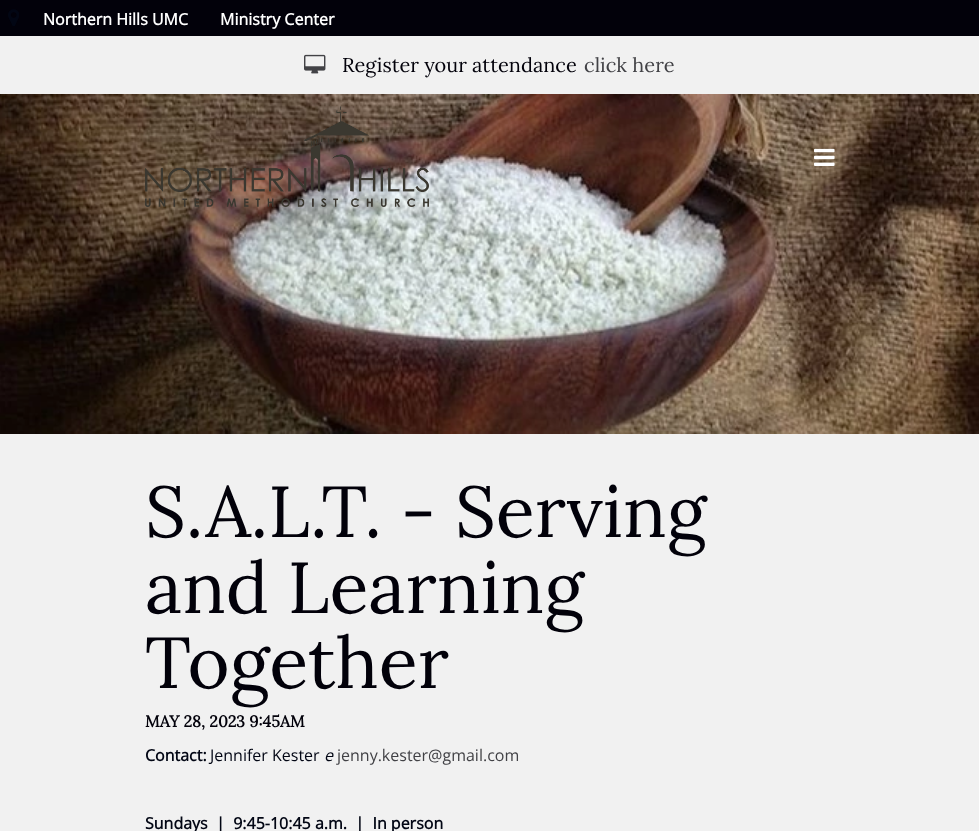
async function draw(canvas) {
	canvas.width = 979;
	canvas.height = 831;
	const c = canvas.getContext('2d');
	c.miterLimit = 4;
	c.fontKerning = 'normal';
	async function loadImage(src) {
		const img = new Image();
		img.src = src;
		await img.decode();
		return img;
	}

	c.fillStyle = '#f1f1f1';
	c.fillRect(0, 0, 979, 831);
	c.fillStyle = '#02010a';
	c.fillRect(0, 0, 979, 36);
	c.drawImage(await loadImage('img1.png'), 8, 9, 11, 17);
	c.font = 'bold 16px Open Sans';
	c.fillStyle = '#fff';
	c.fillText('Northern Hills UMC', 43, 25);
	c.fillText('Ministry Center', 220, 25);
	c.drawImage(await loadImage('img2.png'), 304, 54, 22, 20);
	c.font = '20px Lora';
	c.fillStyle = '#02010a';
	c.fillText('Register your attendance', 342, 72);
	c.fillStyle = '#424246';
	c.fillText('click here', 584, 72);
	c.drawImage(await loadImage('img3.png'), 0, 94, 979, 340);
	c.drawImage(await loadImage('img4.png'), 145, 106, 284, 101);
	c.drawImage(await loadImage('img5.png'), 814, 148, 21, 18);
	c.font = '72px Lora';
	c.fillStyle = '#02010a';
	for (const [text, x, y] of [
		['S.A.L.T. - Serving', 145, 537],
		['and Learning', 145, 613],
		['Together', 145, 688],
	]) {
		c.fillText(text, x, y);
	}
	c.font = 'bold 16px Lora';
	c.fillText('MAY 28, 2023 9:45AM', 145, 727);
	c.font = 'bold 16px Open Sans';
	c.fillStyle = '#020614';
	c.fillText('Contact:', 145, 761);
	c.font = '16px Open Sans';
	c.fillText('Jennifer Kester', 210, 761);
	c.font = 'italic 16px Open Sans';
	c.fillText('e', 324, 761);
	c.font = '16px Open Sans';
	c.fillStyle = '#424246';
	c.fillText('jenny.kester@gmail.com', 337, 761);
	c.font = 'bold 16px Open Sans';
	c.fillStyle = '#020614';
	c.fillText('Sundays  |  9:45-10:45 a.m.  |  In person', 145, 829);
}

draw(document.querySelector('canvas'));
